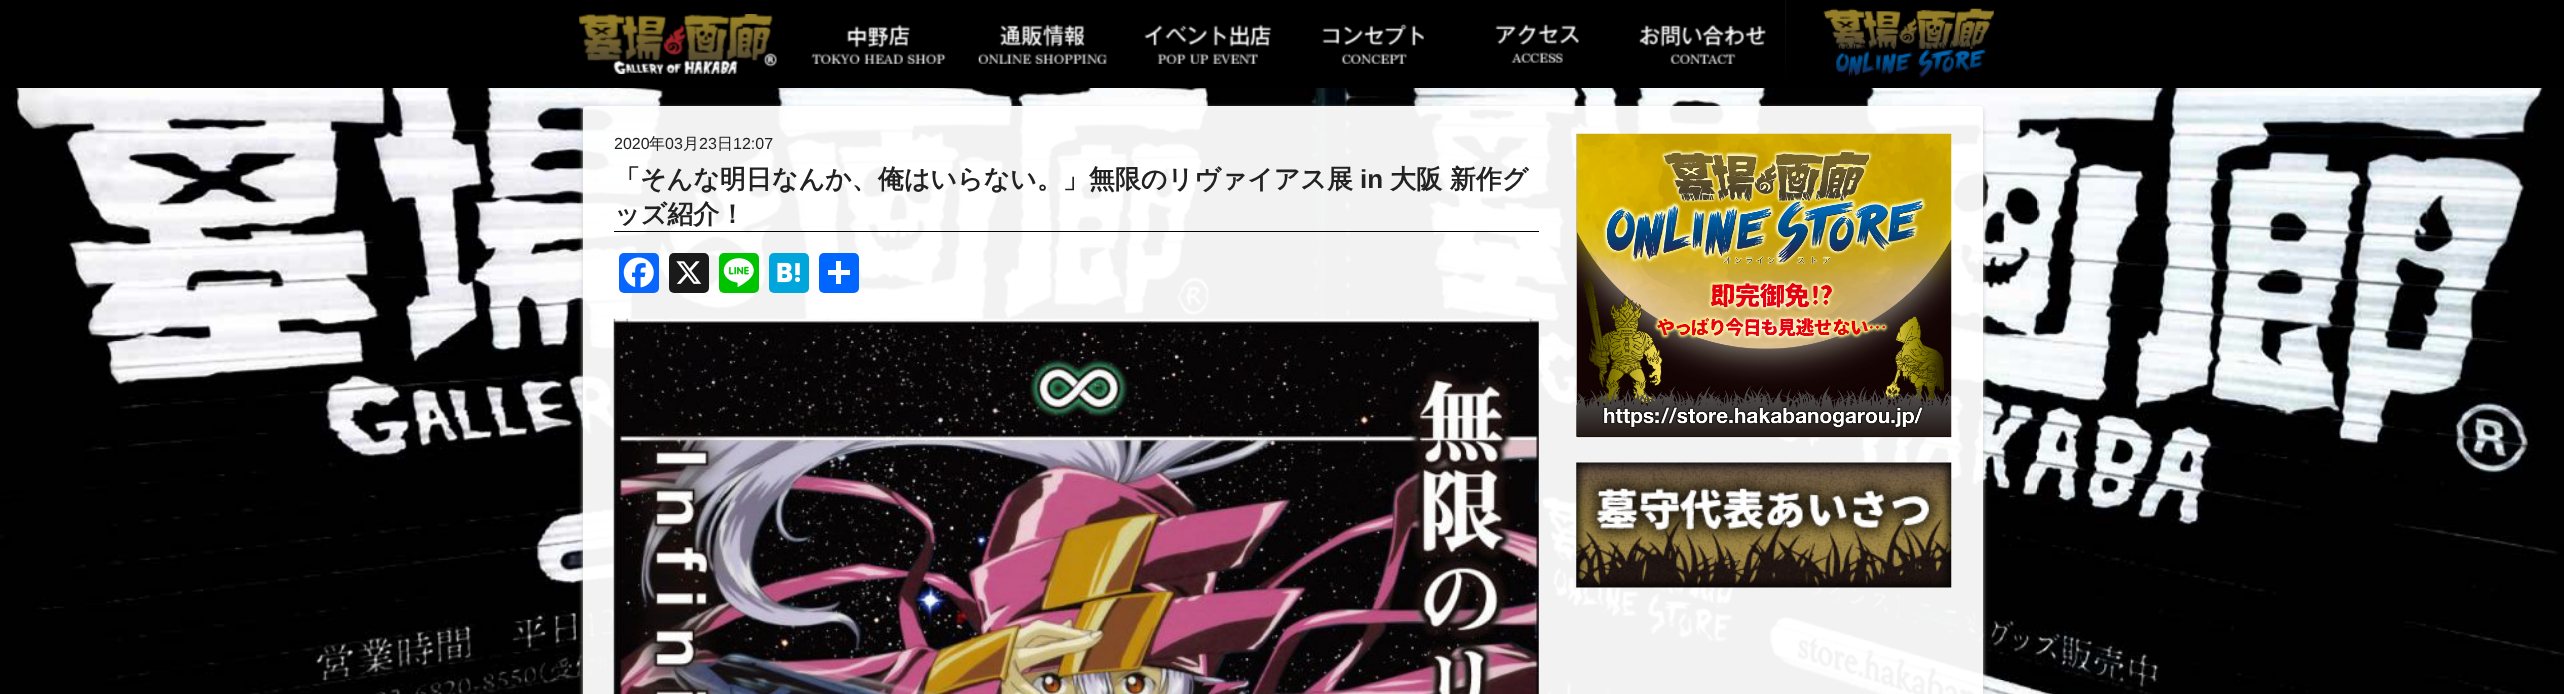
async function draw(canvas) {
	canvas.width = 2564;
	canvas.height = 694;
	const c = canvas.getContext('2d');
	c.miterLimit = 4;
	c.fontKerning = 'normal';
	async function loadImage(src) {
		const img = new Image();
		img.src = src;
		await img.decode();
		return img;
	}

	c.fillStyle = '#fff';
	c.fillRect(0, 0, 2564, 694);
	c.drawImage(await loadImage('img1.png'), 0, 88, 2564, 606);
	c.fillStyle = '#000';
	c.fillRect(0, 0, 2564, 88);
	c.drawImage(await loadImage('img2.png'), 579, 14, 198, 60);
	c.drawImage(await loadImage('img3.png'), 1785, 0, 1, 88);
	c.drawImage(await loadImage('img4.png'), 811, 24, 135, 40);
	c.drawImage(await loadImage('img5.png'), 978, 24, 130, 40);
	c.drawImage(await loadImage('img6.png'), 1144, 24, 128, 40);
	c.drawImage(await loadImage('img7.png'), 1322, 24, 102, 40);
	c.drawImage(await loadImage('img8.png'), 1495, 24, 84, 39);
	c.drawImage(await loadImage('img9.png'), 1639, 24, 127, 40);
	c.drawImage(await loadImage('img10.png'), 1823, 8, 171, 70);
	c.save();
	c.beginPath();
	c.moveTo(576, 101);
	c.lineTo(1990, 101);
	c.lineTo(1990, 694);
	c.lineTo(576, 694);
	c.closePath();
	c.moveTo(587, 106);
	c.lineTo(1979, 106);
	c.bezierCurveTo(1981, 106, 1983, 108, 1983, 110);
	c.lineTo(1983, 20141);
	c.bezierCurveTo(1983, 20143, 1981, 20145, 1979, 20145);
	c.lineTo(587, 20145);
	c.bezierCurveTo(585, 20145, 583, 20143, 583, 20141);
	c.lineTo(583, 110);
	c.bezierCurveTo(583, 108, 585, 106, 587, 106);
	c.closePath();
	c.clip('evenodd');
	c.fillStyle = '#d1cfc6';
	c.filter = 'blur(2px)';
	c.beginPath();
	c.roundRect(583, 108, 1400, 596, 4);
	c.fill();
	c.filter = 'none';
	c.restore();
	c.fillStyle = '#fffffff2';
	c.beginPath();
	c.roundRect(583, 106, 1400, 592, 4);
	c.fill();
	c.font = '16px Liberation Sans';
	c.fillStyle = '#222';
	c.fillText('2020', 614, 149);
	c.font = '500 16px WenQuanYi Zen Hei';
	c.fillText('年', 649, 149);
	c.font = '16px Liberation Sans';
	c.fillText('03', 665, 149);
	c.font = '500 16px WenQuanYi Zen Hei';
	c.fillText('月', 683, 149);
	c.font = '16px Liberation Sans';
	c.fillText('23', 699, 149);
	c.font = '500 16px WenQuanYi Zen Hei';
	c.fillText('日', 717, 149);
	c.font = '16px Liberation Sans';
	c.fillText('12:07', 733, 149);
	c.fillStyle = '#000';
	c.fillRect(614, 231, 925, 1);
	c.font = 'bold 26px WenQuanYi Zen Hei';
	c.fillStyle = '#222';
	c.fillText('「そんな明日なんか、俺はいらない。」無限のリヴァイアス展', 614, 188);
	c.font = 'bold 26px Liberation Sans';
	c.fillText('in', 1360, 188);
	c.font = 'bold 26px WenQuanYi Zen Hei';
	c.fillText('大阪 新作グ', 1390, 188);
	c.fillText('ッズ紹介！', 614, 223);
	c.fillStyle = '#0866ff';
	c.beginPath();
	c.roundRect(619, 253, 40, 40, 5);
	c.fill();
	c.drawImage(await loadImage('img11.png'), 623, 257, 31, 31);
	c.fillStyle = '#1a1a1a';
	c.beginPath();
	c.roundRect(669, 253, 40, 40, 5);
	c.fill();
	c.drawImage(await loadImage('img12.png'), 676, 261, 26, 23);
	c.fillStyle = '#00c300';
	c.beginPath();
	c.roundRect(719, 253, 40, 40, 5);
	c.fill();
	c.drawImage(await loadImage('img13.png'), 723, 258, 31, 29);
	c.fillStyle = '#00a6db';
	c.beginPath();
	c.roundRect(769, 253, 40, 40, 5);
	c.fill();
	c.drawImage(await loadImage('img14.png'), 777, 262, 23, 21);
	c.fillStyle = '#0166ff';
	c.beginPath();
	c.roundRect(819, 253, 40, 40, 5);
	c.fill();
	c.fillStyle = '#fff';
	c.fillRect(836, 261, 5, 23);
	c.fillRect(828, 270, 22, 5);
	c.drawImage(await loadImage('img15.png'), 613, 318, 926, 376);
	c.drawImage(await loadImage('img16.png'), 1576, 133, 376, 305);
	c.drawImage(await loadImage('img17.png'), 1576, 462, 376, 126);
}

draw(document.querySelector('canvas'));
